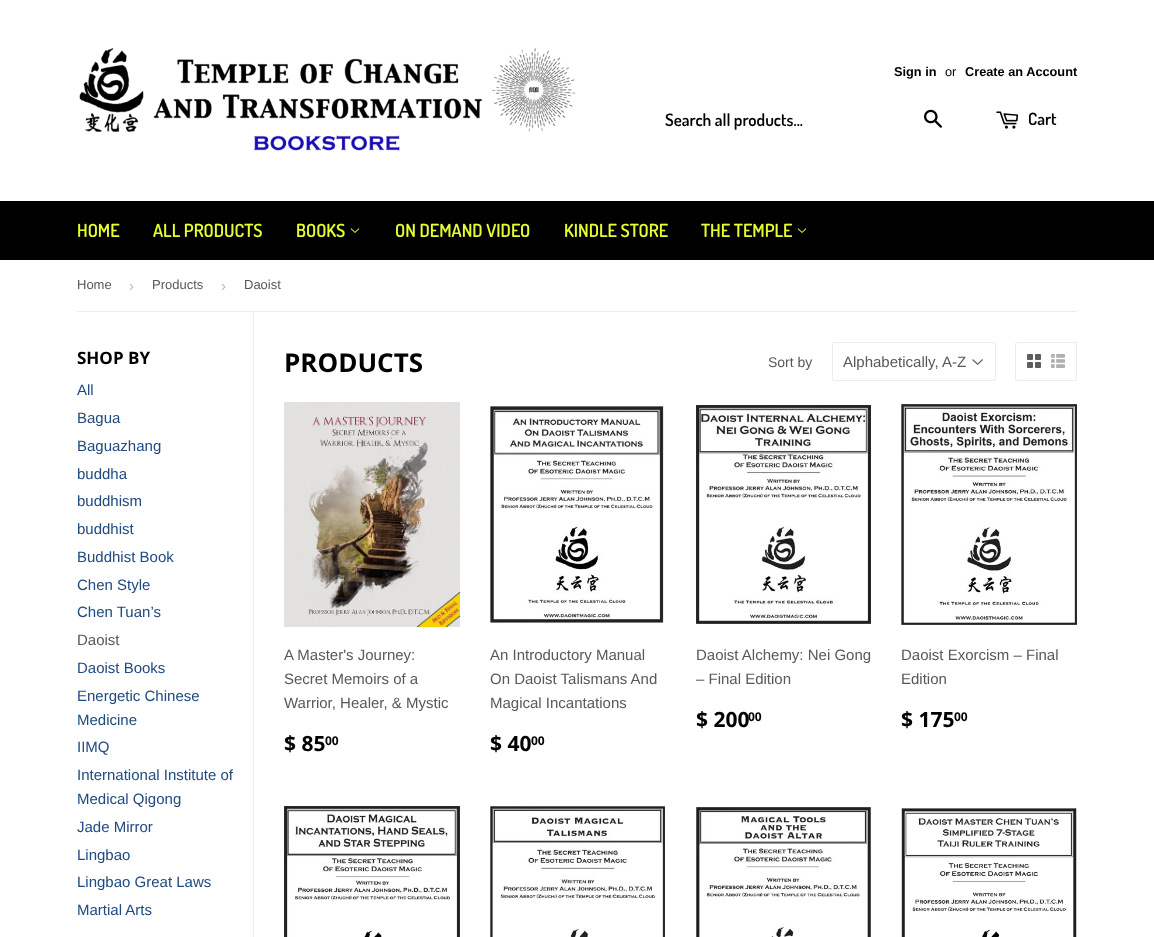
async function draw(canvas) {
	canvas.width = 1154;
	canvas.height = 937;
	const c = canvas.getContext('2d');
	c.miterLimit = 4;
	c.fontKerning = 'normal';
	async function loadImage(src) {
		const img = new Image();
		img.src = src;
		await img.decode();
		return img;
	}

	c.fillStyle = '#fff';
	c.fillRect(0, 0, 1154, 937);
	c.drawImage(await loadImage('img1.png'), 79, 48, 497, 103);
	c.font = 'bold 12.75px Liberation Sans';
	c.fillStyle = '#000';
	c.fillText('Sign in', 894, 76);
	c.font = '12.75px Liberation Sans';
	c.fillText('or', 945, 76);
	c.font = 'bold 12.75px Liberation Sans';
	c.fillText('Create an Account', 965, 76);
	c.font = '600 17px Dosis';
	c.fillText('Search all products...', 665, 126);
	c.drawImage(await loadImage('img2.png'), 924, 109, 18, 19);
	c.drawImage(await loadImage('img3.png'), 996, 111, 23, 18);
	c.fillText('Cart', 1028, 125);
	c.fillRect(0, 201, 1154, 59);
	c.font = '600 18px Dosis';
	c.fillStyle = '#e5ff30';
	for (const [text, x, y] of [
		['HOME', 77, 237],
		['ALL PRODUCTS', 153, 237],
		['BOOKS', 296, 237],
	]) {
		c.fillText(text, x, y);
	}
	c.drawImage(await loadImage('img4.png'), 350, 228, 10, 5);
	for (const [text, x, y] of [
		['ON DEMAND VIDEO', 395, 237],
		['KINDLE STORE', 564, 237],
		['THE TEMPLE', 701, 237],
	]) {
		c.fillText(text, x, y);
	}
	c.drawImage(await loadImage('img4.png'), 797, 228, 10, 5);
	c.fillStyle = '#ececec';
	c.fillRect(77, 311, 1000, 1);
	c.font = '13px Liberation Sans';
	c.fillStyle = '#585858';
	c.fillText('Home', 77, 289);
	c.font = '15px Liberation Sans';
	c.fillStyle = '#bbb';
	c.fillText('›', 129, 291);
	c.font = '13px Liberation Sans';
	c.fillStyle = '#585858';
	c.fillText('Products', 152, 289);
	c.font = '15px Liberation Sans';
	c.fillStyle = '#bbb';
	c.fillText('›', 221, 291);
	c.font = '13px Liberation Sans';
	c.fillStyle = '#585858';
	c.fillText('Daoist', 244, 289);
	c.font = 'bold 17px Open Sans';
	c.fillStyle = '#000';
	c.fillText('SHOP BY', 77, 364);
	c.font = '15px Liberation Sans';
	c.fillStyle = '#204a80';
	for (const [text, x, y] of [
		['All', 77, 395],
		['Bagua', 77, 423],
		['Baguazhang', 77, 451],
		['buddha', 77, 479],
		['buddhism', 77, 506],
		['buddhist', 77, 534],
		['Buddhist Book', 77, 562],
		['Chen Style', 77, 590],
		['Chen Tuan’s', 77, 617],
	]) {
		c.fillText(text, x, y);
	}
	c.fillStyle = '#585858';
	c.fillText('Daoist', 77, 645);
	c.fillStyle = '#204a80';
	for (const [text, x, y] of [
		['Daoist Books', 77, 673],
		['Energetic Chinese', 77, 701],
		['Medicine', 77, 725],
		['IIMQ', 77, 752],
		['International Institute of', 77, 780],
		['Medical Qigong', 77, 804],
		['Jade Mirror', 77, 832],
		['Lingbao', 77, 860],
		['Lingbao Great Laws', 77, 887],
		['Martial Arts', 77, 915],
	]) {
		c.fillText(text, x, y);
	}
	c.fillStyle = '#ececec';
	c.fillRect(253, 312, 1, 625);
	c.font = 'bold 26px Open Sans';
	c.fillStyle = '#000';
	c.fillText('PRODUCTS', 284, 372);
	c.font = '14px Liberation Sans';
	c.fillStyle = '#585858';
	c.fillText('Sort by', 768, 367);
	c.drawImage(await loadImage('img5.png'), 972, 359, 11, 6);
	c.beginPath();
	c.roundRect(832.5, 342.5, 163, 38, 1.5);
	c.strokeStyle = '#ececec';
	c.stroke();
	c.font = '15px Liberation Sans';
	c.fillText('Alphabetically, A-Z', 843, 367);
	c.beginPath();
	c.roundRect(1015.5, 342.5, 61, 38, 1.5);
	c.stroke();
	c.drawImage(await loadImage('img6.png'), 1027, 354, 14, 14);
	c.drawImage(await loadImage('img7.png'), 1051, 354, 14, 14);
	c.drawImage(await loadImage('img8.png'), 284, 402, 176, 225);
	for (const [text, x, y] of [
		['A Master\'s Journey:', 284, 660],
		['Secret Memoirs of a', 284, 684],
		['Warrior, Healer, & Mystic', 284, 708],
	]) {
		c.fillText(text, x, y);
	}
	c.font = 'bold 21px Open Sans';
	c.fillStyle = '#000';
	c.fillText('$ 85', 284, 751);
	c.font = 'bold 12px Open Sans';
	c.fillText('00', 325, 745);
	c.drawImage(await loadImage('img9.png'), 490, 406, 174, 217);
	c.font = '15px Liberation Sans';
	c.fillStyle = '#585858';
	for (const [text, x, y] of [
		['An Introductory Manual', 490, 660],
		['On Daoist Talismans And', 490, 684],
		['Magical Incantations', 490, 708],
	]) {
		c.fillText(text, x, y);
	}
	c.font = 'bold 21px Open Sans';
	c.fillStyle = '#000';
	c.fillText('$ 40', 490, 751);
	c.font = 'bold 12px Open Sans';
	c.fillText('00', 531, 745);
	c.drawImage(await loadImage('img10.png'), 696, 405, 175, 219);
	c.font = '15px Liberation Sans';
	c.fillStyle = '#585858';
	c.fillText('Daoist Alchemy: Nei Gong', 696, 660);
	c.fillText('– Final Edition', 696, 684);
	c.font = 'bold 21px Open Sans';
	c.fillStyle = '#000';
	c.fillText('$ 200', 696, 727);
	c.font = 'bold 12px Open Sans';
	c.fillText('00', 748, 721);
	c.drawImage(await loadImage('img11.png'), 901, 404, 176, 221);
	c.font = '15px Liberation Sans';
	c.fillStyle = '#585858';
	c.fillText('Daoist Exorcism – Final', 901, 660);
	c.fillText('Edition', 901, 684);
	c.font = 'bold 21px Open Sans';
	c.fillStyle = '#000';
	c.fillText('$ 175', 901, 727);
	c.font = 'bold 12px Open Sans';
	c.fillText('00', 954, 721);
	c.drawImage(await loadImage('img12.png'), 284, 806, 176, 131);
	c.drawImage(await loadImage('img13.png'), 490, 806, 175, 131);
	c.drawImage(await loadImage('img14.png'), 696, 807, 175, 130);
	c.drawImage(await loadImage('img15.png'), 901, 808, 176, 129);
}

draw(document.querySelector('canvas'));
